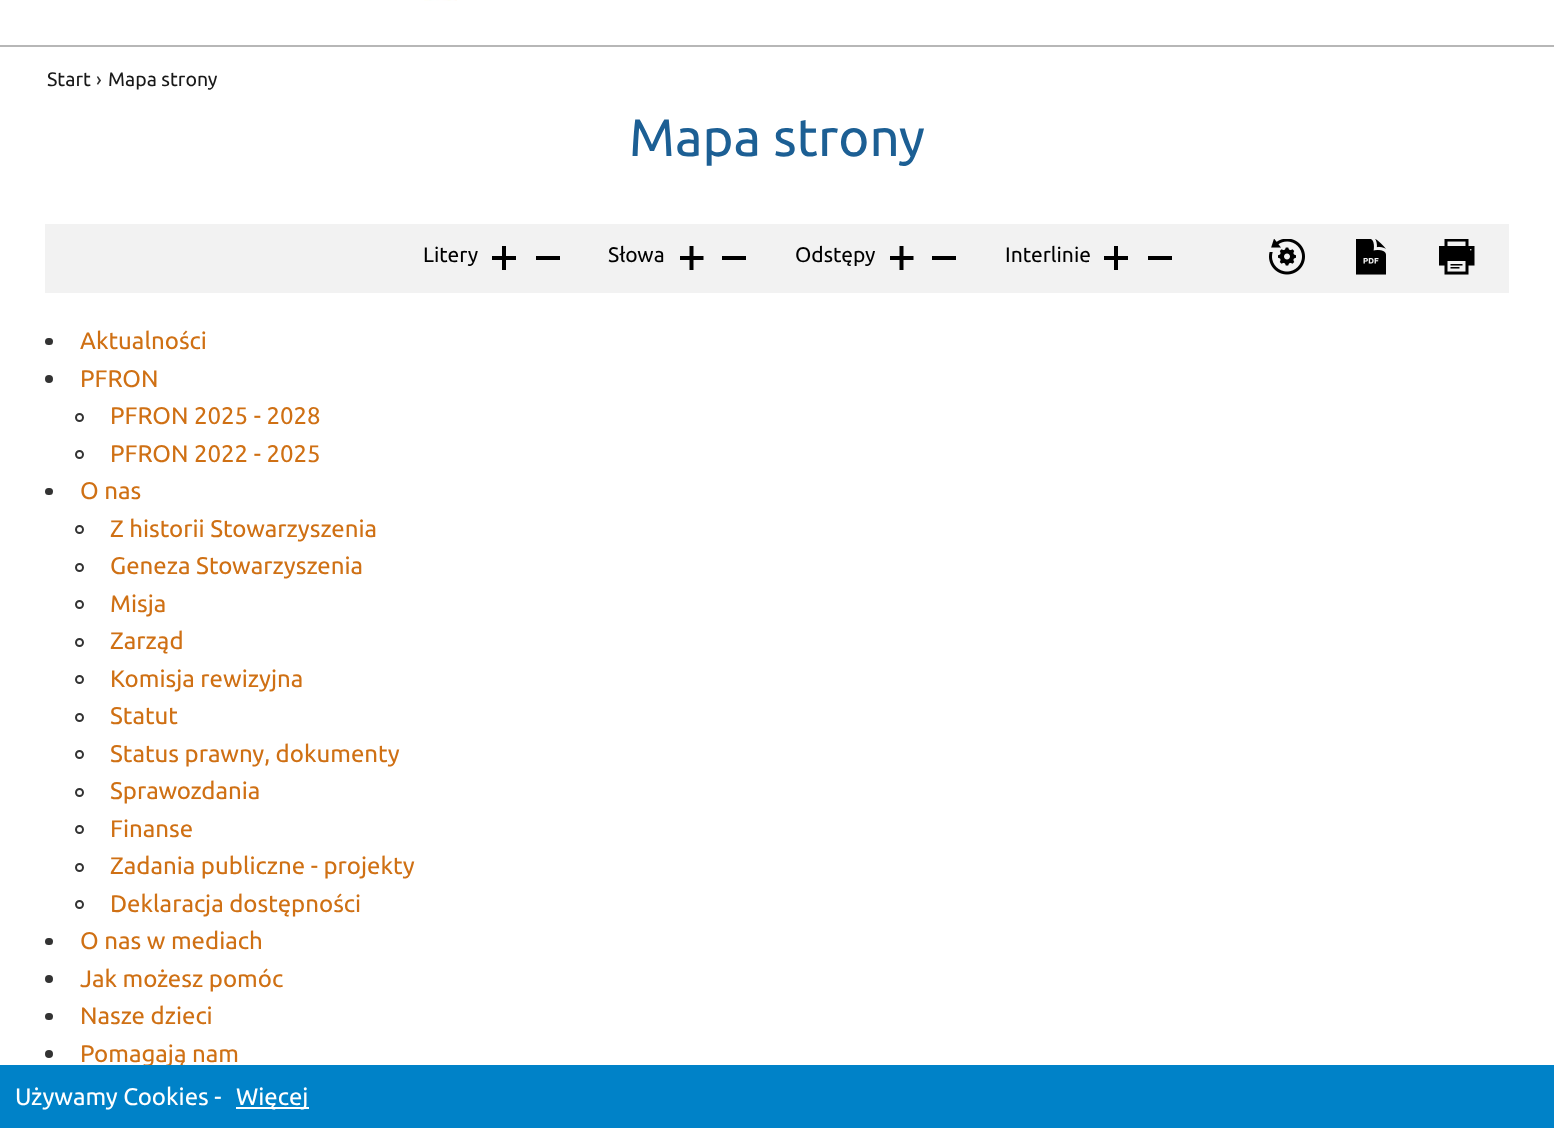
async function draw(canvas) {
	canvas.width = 1554;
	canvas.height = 1128;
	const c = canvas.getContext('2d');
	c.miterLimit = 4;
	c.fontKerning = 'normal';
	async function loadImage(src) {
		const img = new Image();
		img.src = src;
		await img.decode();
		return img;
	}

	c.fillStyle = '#fff';
	c.fillRect(0, 0, 1554, 1128);
	c.fillStyle = '#b7b7b7';
	c.fillRect(0, 45, 1554, 2);
	c.drawImage(await loadImage('img1.png'), 424, 0, 33, 1);
	c.font = '19.5px Ubuntu';
	c.fillStyle = '#191919';
	c.fillText('Start', 47, 86);
	c.fillStyle = '#333';
	c.fillText('›', 96, 86);
	c.fillStyle = '#191919';
	c.fillText('Mapa strony', 108, 86);
	c.font = '52.75px Ubuntu';
	c.fillStyle = '#1c5f94';
	c.fillText('Mapa strony', 629, 156);
	c.fillStyle = '#f2f2f2';
	c.fillRect(45, 224, 1464, 69);
	c.font = '21px Ubuntu';
	c.fillStyle = '#000';
	c.fillText('Litery', 423, 262);
	c.drawImage(await loadImage('img2.png'), 492, 246, 24, 24);
	c.fillRect(536, 256, 24, 4);
	c.fillText('Słowa', 608, 262);
	c.drawImage(await loadImage('img3.png'), 680, 246, 24, 24);
	c.fillRect(722, 256, 24, 4);
	c.fillText('Odstępy', 795, 262);
	c.drawImage(await loadImage('img3.png'), 890, 246, 24, 24);
	c.fillRect(932, 256, 24, 4);
	c.fillText('Interlinie', 1005, 262);
	c.drawImage(await loadImage('img2.png'), 1104, 246, 24, 24);
	c.fillRect(1148, 256, 24, 4);
	c.drawImage(await loadImage('img4.png'), 1269, 239, 36, 36);
	c.drawImage(await loadImage('img5.png'), 1356, 239, 30, 36);
	c.drawImage(await loadImage('img6.png'), 1439, 239, 36, 36);
	c.fillStyle = '#333';
	c.beginPath();
	c.roundRect(45, 338, 8, 7, 3.5);
	c.fill();
	c.font = '24px Ubuntu';
	c.fillStyle = '#cf7014';
	c.fillText('Aktualności', 80, 349);
	c.fillStyle = '#333';
	c.beginPath();
	c.arc(49, 379, 4, 0, 2 * Math.PI);
	c.fill();
	c.fillStyle = '#cf7014';
	c.fillText('PFRON', 80, 387);
	c.beginPath();
	c.arc(79.5, 417.5, 3.5, 0, 2 * Math.PI);
	c.strokeStyle = '#333';
	c.lineWidth = 2;
	c.stroke();
	c.fillText('PFRON 2025 - 2028', 110, 424);
	c.beginPath();
	c.arc(79.5, 454.5, 3.5, 0, 2 * Math.PI);
	c.stroke();
	c.fillText('PFRON 2022 - 2025', 110, 462);
	c.fillStyle = '#333';
	c.beginPath();
	c.roundRect(45, 488, 8, 7, 3.5);
	c.fill();
	c.fillStyle = '#cf7014';
	c.fillText('O nas', 80, 499);
	c.beginPath();
	c.arc(79.5, 529.5, 3.5, 0, 2 * Math.PI);
	c.stroke();
	c.fillText('Z historii Stowarzyszenia', 110, 537);
	c.beginPath();
	c.arc(79.5, 567.5, 3.5, 0, 2 * Math.PI);
	c.stroke();
	c.fillText('Geneza Stowarzyszenia', 110, 574);
	c.beginPath();
	c.arc(79.5, 604.5, 3.5, 0, 2 * Math.PI);
	c.stroke();
	c.fillText('Misja', 110, 612);
	c.beginPath();
	c.arc(79.5, 642.5, 3.5, 0, 2 * Math.PI);
	c.stroke();
	c.fillText('Zarząd', 110, 649);
	c.beginPath();
	c.arc(79.5, 679.5, 3.5, 0, 2 * Math.PI);
	c.stroke();
	c.fillText('Komisja rewizyjna', 110, 687);
	c.beginPath();
	c.arc(79.5, 717.5, 3.5, 0, 2 * Math.PI);
	c.stroke();
	c.fillText('Statut', 110, 724);
	c.beginPath();
	c.arc(79.5, 754.5, 3.5, 0, 2 * Math.PI);
	c.stroke();
	c.fillText('Status prawny, dokumenty', 110, 762);
	c.beginPath();
	c.arc(79.5, 792.5, 3.5, 0, 2 * Math.PI);
	c.stroke();
	c.fillText('Sprawozdania', 110, 799);
	c.beginPath();
	c.arc(79.5, 829.5, 3.5, 0, 2 * Math.PI);
	c.stroke();
	c.fillText('Finanse', 110, 837);
	c.beginPath();
	c.arc(79.5, 867.5, 3.5, 0, 2 * Math.PI);
	c.stroke();
	c.fillText('Zadania publiczne - projekty', 110, 874);
	c.beginPath();
	c.arc(79.5, 904.5, 3.5, 0, 2 * Math.PI);
	c.stroke();
	c.fillText('Deklaracja dostępności', 110, 912);
	c.fillStyle = '#333';
	c.beginPath();
	c.roundRect(45, 938, 8, 7, 3.5);
	c.fill();
	c.fillStyle = '#cf7014';
	c.fillText('O nas w mediach', 80, 949);
	c.fillStyle = '#333';
	c.beginPath();
	c.arc(49, 979, 4, 0, 2 * Math.PI);
	c.fill();
	c.fillStyle = '#cf7014';
	c.fillText('Jak możesz pomóc', 80, 987);
	c.fillStyle = '#333';
	c.beginPath();
	c.roundRect(45, 1013, 8, 7, 3.5);
	c.fill();
	c.fillStyle = '#cf7014';
	c.fillText('Nasze dzieci', 80, 1024);
	c.fillStyle = '#333';
	c.beginPath();
	c.arc(49, 1054, 4, 0, 2 * Math.PI);
	c.fill();
	c.fillStyle = '#cf7014';
	c.fillText('Pomagają nam', 80, 1062);
	c.fillStyle = '#0082c8';
	c.fillRect(0, 1065, 1554, 63);
	c.fillStyle = '#fff';
	c.fillText('Używamy Cookies -', 15, 1105);
	c.fillRect(236, 1107, 73, 2);
	c.fillText('Więcej', 236, 1105);
}

draw(document.querySelector('canvas'));
